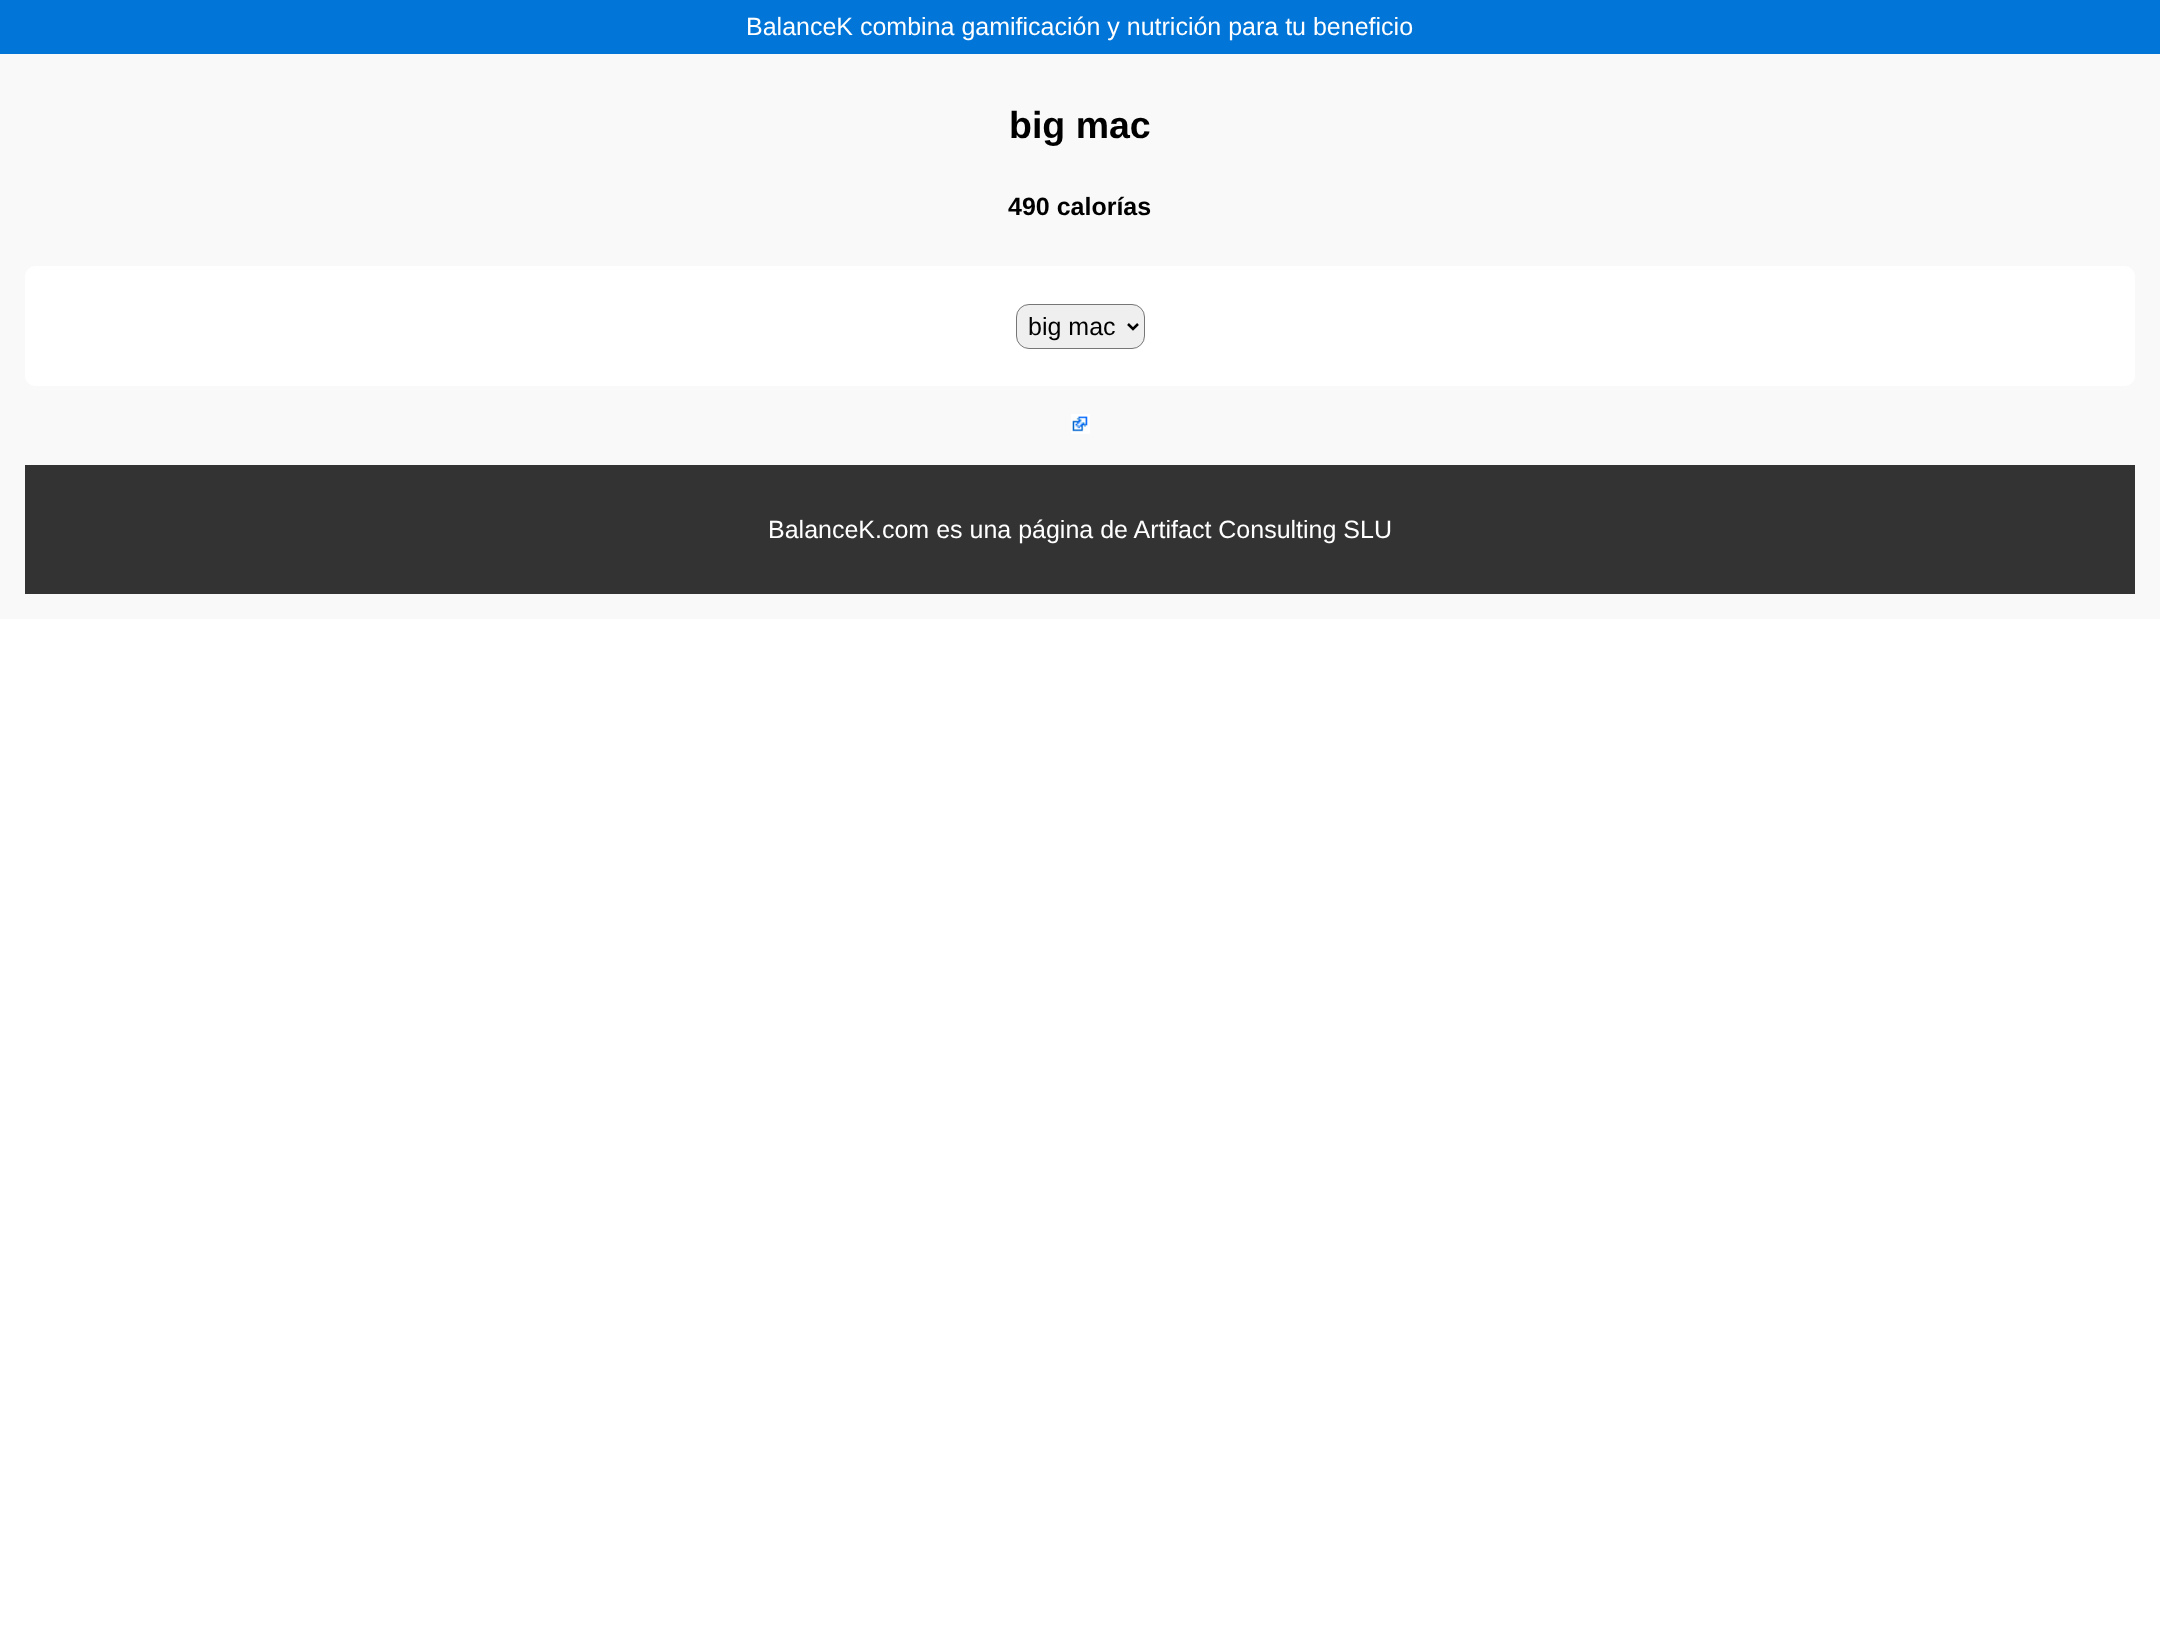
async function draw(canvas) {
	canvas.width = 2160;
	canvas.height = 1635;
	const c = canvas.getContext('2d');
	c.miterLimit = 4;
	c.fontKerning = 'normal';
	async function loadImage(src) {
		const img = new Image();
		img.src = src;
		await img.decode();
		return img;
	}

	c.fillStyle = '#fff';
	c.fillRect(0, 0, 2160, 1635);
	c.fillStyle = '#0275d8';
	c.fillRect(0, 0, 2160, 54);
	c.font = '25px Liberation Sans';
	c.fillStyle = '#fff';
	c.fillText('BalanceK combina gamificación y nutrición para tu beneficio', 746, 35);
	c.fillStyle = '#f9f9f9';
	c.fillRect(0, 54, 2160, 565);
	c.font = 'bold 37.5px Liberation Sans';
	c.fillStyle = '#000';
	c.fillText('big mac', 1009, 138);
	c.font = 'bold 25px Liberation Sans';
	c.fillText('490 calorías', 1008, 215);
	c.fillStyle = '#fff';
	c.beginPath();
	c.roundRect(25, 266, 2110, 120, 10);
	c.fill();
	c.fillStyle = '#efefef';
	c.beginPath();
	c.roundRect(1016.5, 304.5, 128, 44, 12.5);
	c.fill();
	c.strokeStyle = '#767676';
	c.stroke();
	c.beginPath();
	c.moveTo(1128, 324);
	c.lineTo(1133, 329);
	c.lineTo(1138, 324);
	c.strokeStyle = '#000';
	c.lineWidth = 2.5;
	c.stroke();
	c.font = '25px Liberation Sans';
	c.fillStyle = '#000';
	c.fillText('big mac', 1028, 335);
	c.drawImage(await loadImage('img1.png'), 1071, 414, 19, 20);
	c.fillStyle = '#333';
	c.fillRect(25, 465, 2110, 129);
	c.fillStyle = '#fff';
	c.fillText('BalanceK.com es una página de Artifact Consulting SLU', 768, 538);
}

draw(document.querySelector('canvas'));
